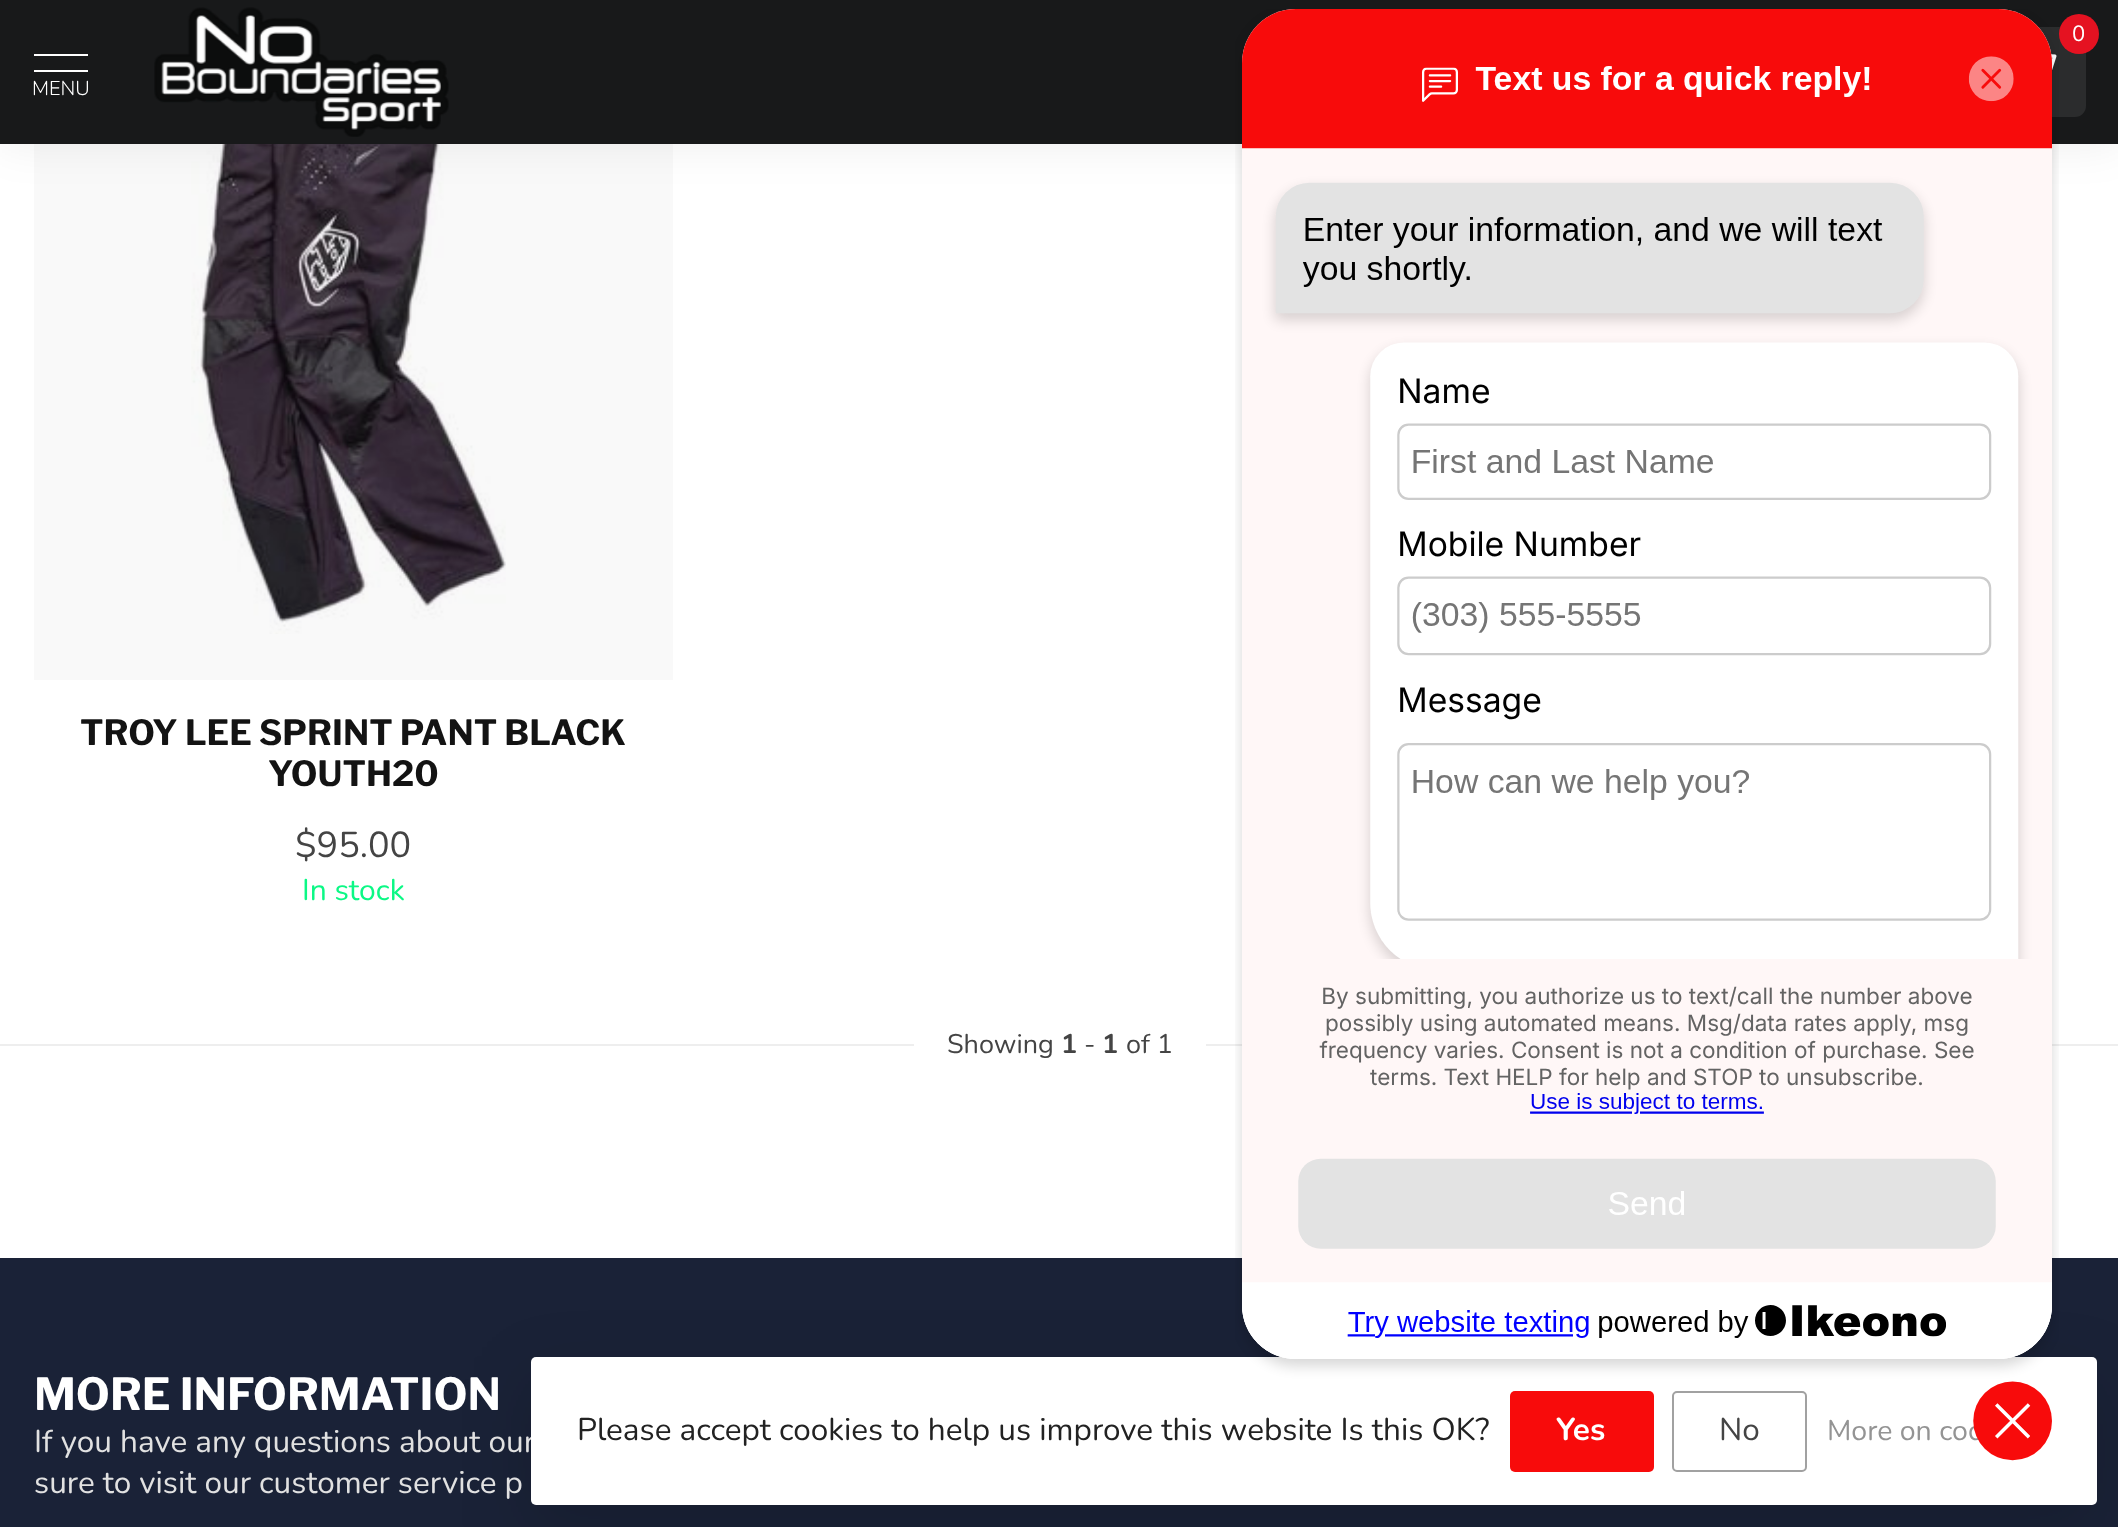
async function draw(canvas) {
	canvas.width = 2118;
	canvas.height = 1527;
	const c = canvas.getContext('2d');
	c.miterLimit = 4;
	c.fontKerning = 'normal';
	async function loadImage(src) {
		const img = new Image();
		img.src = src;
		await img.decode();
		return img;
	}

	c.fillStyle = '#fff';
	c.fillRect(0, 0, 2118, 1527);
	c.fillStyle = '#f9f9f9';
	c.fillRect(34, 144, 639, 536);
	c.drawImage(await loadImage('img4.png'), 191, 144, 315, 490);
	c.fillStyle = '#00000012';
	c.filter = 'blur(22.5px)';
	c.beginPath();
	c.rect(0, -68, 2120, 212);
	c.fill();
	c.filter = 'none';
	c.fillStyle = '#18191a';
	c.fillRect(0, 0, 2118, 144);
	c.fillStyle = '#2b2c2d';
	c.beginPath();
	c.roundRect(1973, 27, 113, 90, 11);
	c.fill();
	c.drawImage(await loadImage('img2.png'), 2051, 54, 6, 16);
	c.fillStyle = '#eee';
	c.fillRect(0, 1044, 2118, 2);
	c.fillStyle = '#1a2237';
	c.fillRect(0, 1258, 2118, 269);
	c.fillStyle = '#00000026';
	c.filter = 'blur(34px)';
	c.beginPath();
	c.roundRect(531, 1379, 1566, 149, 5);
	c.fill();
	c.filter = 'none';
	c.font = '31.5px Nunito';
	c.fillStyle = '#e1e1e1';
	c.fillText('If you have any questions about our', 34, 1452);
	c.fillStyle = '#fff';
	c.beginPath();
	c.roundRect(531, 1357, 1566, 148, 5);
	c.fill();
	c.fillStyle = '#222';
	c.fillText('Please accept cookies to help us improve this website Is this OK?', 577, 1440);
	c.fillStyle = '#f80b0b';
	c.beginPath();
	c.roundRect(1510, 1391, 144, 81, 5);
	c.fill();
	c.font = 'bold 31.5px Nunito';
	c.fillStyle = '#fff';
	c.fillText('Yes', 1556, 1440);
	c.beginPath();
	c.roundRect(1673, 1392, 133, 79, 4);
	c.strokeStyle = '#a1a1a1';
	c.lineWidth = 2;
	c.stroke();
	c.font = '31.5px Nunito';
	c.fillStyle = '#444';
	c.fillText('No', 1719, 1440);
	c.font = '28.5px Nunito';
	c.fillStyle = '#949494';
	c.fillText('More on coo', 1827, 1440);
	c.drawImage(await loadImage('img1.png'), 1235, 9, 824, 1452);
	c.fillStyle = '#e51221';
	c.beginPath();
	c.arc(2079, 34, 20, 0, 2 * Math.PI);
	c.fill();
	c.font = '22px Nunito';
	c.fillStyle = '#fff';
	c.fillText('0', 2072, 41);
	c.fillRect(34, 54, 54, 2);
	c.fillRect(34, 70, 54, 2);
	c.font = '300 20px Nunito';
	c.fillText('MENU', 32, 95);
	c.drawImage(await loadImage('img3.png'), 154, 7, 295, 130);
	c.font = 'bold 34.6px Libre Franklin';
	c.fillStyle = '#131313';
	c.fillText('TROY LEE SPRINT PANT BLACK', 80, 745);
	c.fillText('YOUTH20', 268, 786);
	c.font = '36px Nunito';
	c.fillStyle = '#444';
	c.fillText('$95.00', 295, 857);
	c.font = '30px Nunito';
	c.fillStyle = '#0bf885';
	c.fillText('In stock', 302, 900);
	c.fillStyle = '#fff';
	c.fillRect(914, 1044, 292, 2);
	c.font = '27px Nunito';
	c.fillStyle = '#444';
	c.fillText('Showing', 947, 1053);
	c.font = 'bold 27px Nunito';
	c.fillText('1', 1061, 1053);
	c.fillText('1', 1102, 1053);
	c.font = '27px Nunito';
	c.fillText('of 1', 1126, 1053);
	c.fillText('-', 1084, 1053);
	c.font = 'bold 44.1px Libre Franklin';
	c.fillStyle = '#fff';
	c.fillText('MORE INFORMATION', 34, 1410);
	c.font = '31.5px Nunito';
	c.fillStyle = '#e1e1e1';
	c.fillText('sure to visit our customer service p', 34, 1493);
}

draw(document.querySelector('canvas'));
